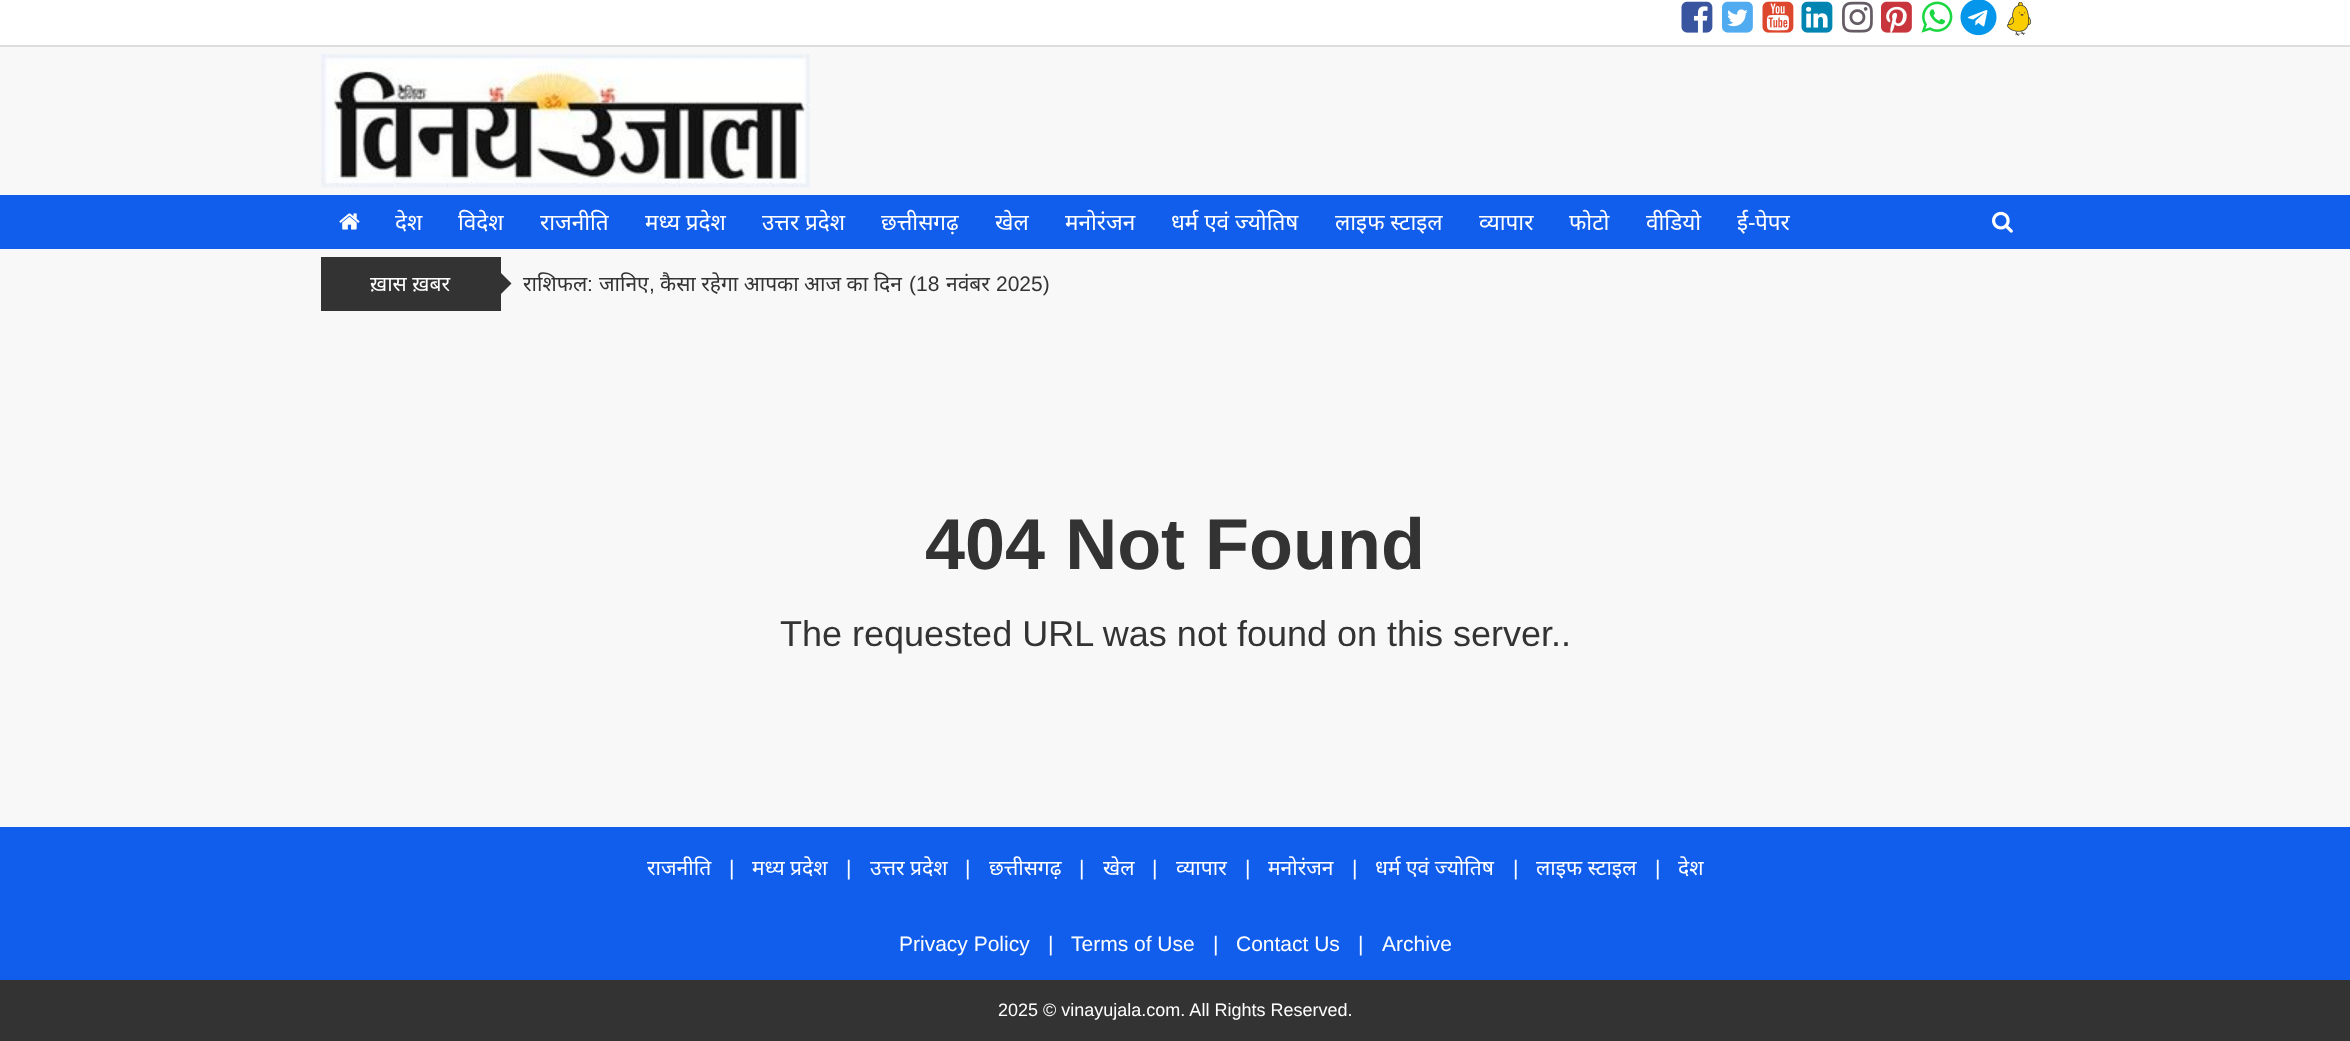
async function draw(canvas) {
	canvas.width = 2350;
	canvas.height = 1041;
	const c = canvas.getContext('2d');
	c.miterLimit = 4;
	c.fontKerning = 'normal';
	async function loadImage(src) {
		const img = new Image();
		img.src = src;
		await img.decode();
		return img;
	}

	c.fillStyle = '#f8f8f8';
	c.fillRect(0, 0, 2350, 1041);
	c.fillStyle = '#fff';
	c.fillRect(0, 0, 2350, 45);
	c.fillStyle = '#ddd';
	c.fillRect(0, 45, 2350, 2);
	c.drawImage(await loadImage('img1.png'), 1681, 1, 32, 32);
	c.drawImage(await loadImage('img2.png'), 1722, 1, 31, 32);
	c.drawImage(await loadImage('img3.png'), 1762, 1, 32, 32);
	c.drawImage(await loadImage('img4.png'), 1801, 1, 32, 32);
	c.drawImage(await loadImage('img5.png'), 1842, 1, 31, 32);
	c.drawImage(await loadImage('img6.png'), 1881, 1, 31, 32);
	c.drawImage(await loadImage('img7.png'), 1921, 1, 32, 32);
	c.drawImage(await loadImage('img8.png'), 1960, 0, 37, 36);
	c.drawImage(await loadImage('img9.png'), 2007, 2, 24, 34);
	c.drawImage(await loadImage('img10.png'), 321, 54, 489, 134);
	c.fillStyle = '#115eed';
	c.fillRect(0, 195, 2350, 54);
	c.drawImage(await loadImage('img11.png'), 339, 213, 21, 17);
	c.font = '22.5px Noto Sans';
	c.fillStyle = '#fff';
	for (const [text, x, y] of [
		['देश', 395, 230],
		['विदेश', 458, 230],
		['राजनीति', 540, 230],
		['मध्य प्रदेश', 645, 230],
		['उत्तर प्रदेश', 762, 230],
		['छत्तीसगढ़', 881, 230],
		['खेल', 995, 230],
		['मनोरंजन', 1065, 230],
		['धर्म एवं ज्योतिष', 1171, 230],
		['लाइफ स्टाइल', 1335, 230],
		['व्यापार', 1479, 230],
		['फोटो', 1569, 230],
		['वीडियो', 1646, 230],
		['ई', 1737, 230],
	]) {
		c.fillText(text, x, y);
	}
	c.font = '22.5px Liberation Sans';
	c.fillText('-', 1748, 230);
	c.font = '22.5px Noto Sans';
	c.fillText('पेपर', 1755, 230);
	c.drawImage(await loadImage('img12.png'), 1992, 211, 21, 22);
	c.fillStyle = '#333';
	c.fillRect(321, 257, 180, 54);
	c.font = '21px Noto Sans';
	c.fillStyle = '#fff';
	c.fillText('ख़ास ख़बर', 370, 291);
	c.fillStyle = '#333';
	c.beginPath();
	c.moveTo(495, 300);
	c.lineTo(495, 267);
	c.lineTo(511.5, 283.5);
	c.closePath();
	c.fill();
	c.fillText('राशिफल', 523, 291);
	c.font = '21px Liberation Sans';
	c.fillText(':', 587, 291);
	c.font = '21px Noto Sans';
	c.fillText('जानिए', 599, 291);
	c.font = '21px Liberation Sans';
	c.fillText(',', 649, 291);
	c.font = '21px Noto Sans';
	c.fillText('कैसा रहेगा आपका आज का दिन', 660, 291);
	c.font = '21px Liberation Sans';
	c.fillText('(18', 909, 291);
	c.font = '21px Noto Sans';
	c.fillText('नवंबर', 946, 291);
	c.font = '21px Liberation Sans';
	c.fillText('2025)', 996, 291);
	c.font = 'bold 72px Liberation Sans';
	c.fillText('404 Not Found', 925, 569);
	c.font = '36px Liberation Sans';
	c.fillText('The requested URL was not found on this server..', 780, 646);
	c.fillStyle = '#115eed';
	c.fillRect(0, 827, 2350, 153);
	c.font = '21px Noto Sans';
	c.fillStyle = '#fff';
	c.fillText('राजनीति', 647, 875);
	c.font = '21px Liberation Sans';
	c.fillText('|', 729, 875);
	c.font = '21px Noto Sans';
	c.fillText('मध्य प्रदेश', 752, 875);
	c.font = '21px Liberation Sans';
	c.fillText('|', 846, 875);
	c.font = '21px Noto Sans';
	c.fillText('उत्तर प्रदेश', 870, 875);
	c.font = '21px Liberation Sans';
	c.fillText('|', 965, 875);
	c.font = '21px Noto Sans';
	c.fillText('छत्तीसगढ़', 989, 875);
	c.font = '21px Liberation Sans';
	c.fillText('|', 1079, 875);
	c.font = '21px Noto Sans';
	c.fillText('खेल', 1103, 875);
	c.font = '21px Liberation Sans';
	c.fillText('|', 1152, 875);
	c.font = '21px Noto Sans';
	c.fillText('व्यापार', 1176, 875);
	c.font = '21px Liberation Sans';
	c.fillText('|', 1245, 875);
	c.font = '21px Noto Sans';
	c.fillText('मनोरंजन', 1268, 875);
	c.font = '21px Liberation Sans';
	c.fillText('|', 1352, 875);
	c.font = '21px Noto Sans';
	c.fillText('धर्म एवं ज्योतिष', 1375, 875);
	c.font = '21px Liberation Sans';
	c.fillText('|', 1513, 875);
	c.font = '21px Noto Sans';
	c.fillText('लाइफ स्टाइल', 1536, 875);
	c.font = '21px Liberation Sans';
	c.fillText('|', 1655, 875);
	c.font = '21px Noto Sans';
	c.fillText('देश', 1678, 875);
	c.font = '21px Liberation Sans';
	for (const [text, x, y] of [
		['Privacy Policy', 899, 951],
		['|', 1048, 951],
		['Terms of Use', 1071, 951],
		['|', 1213, 951],
		['Contact Us', 1236, 951],
		['|', 1358, 951],
		['Archive', 1382, 951],
	]) {
		c.fillText(text, x, y);
	}
	c.fillStyle = '#333';
	c.fillRect(0, 980, 2350, 61);
	c.font = '18px Liberation Sans';
	c.fillStyle = '#fff';
	c.fillText('2025 © vinayujala.com. All Rights Reserved.', 998, 1016);
}

draw(document.querySelector('canvas'));
